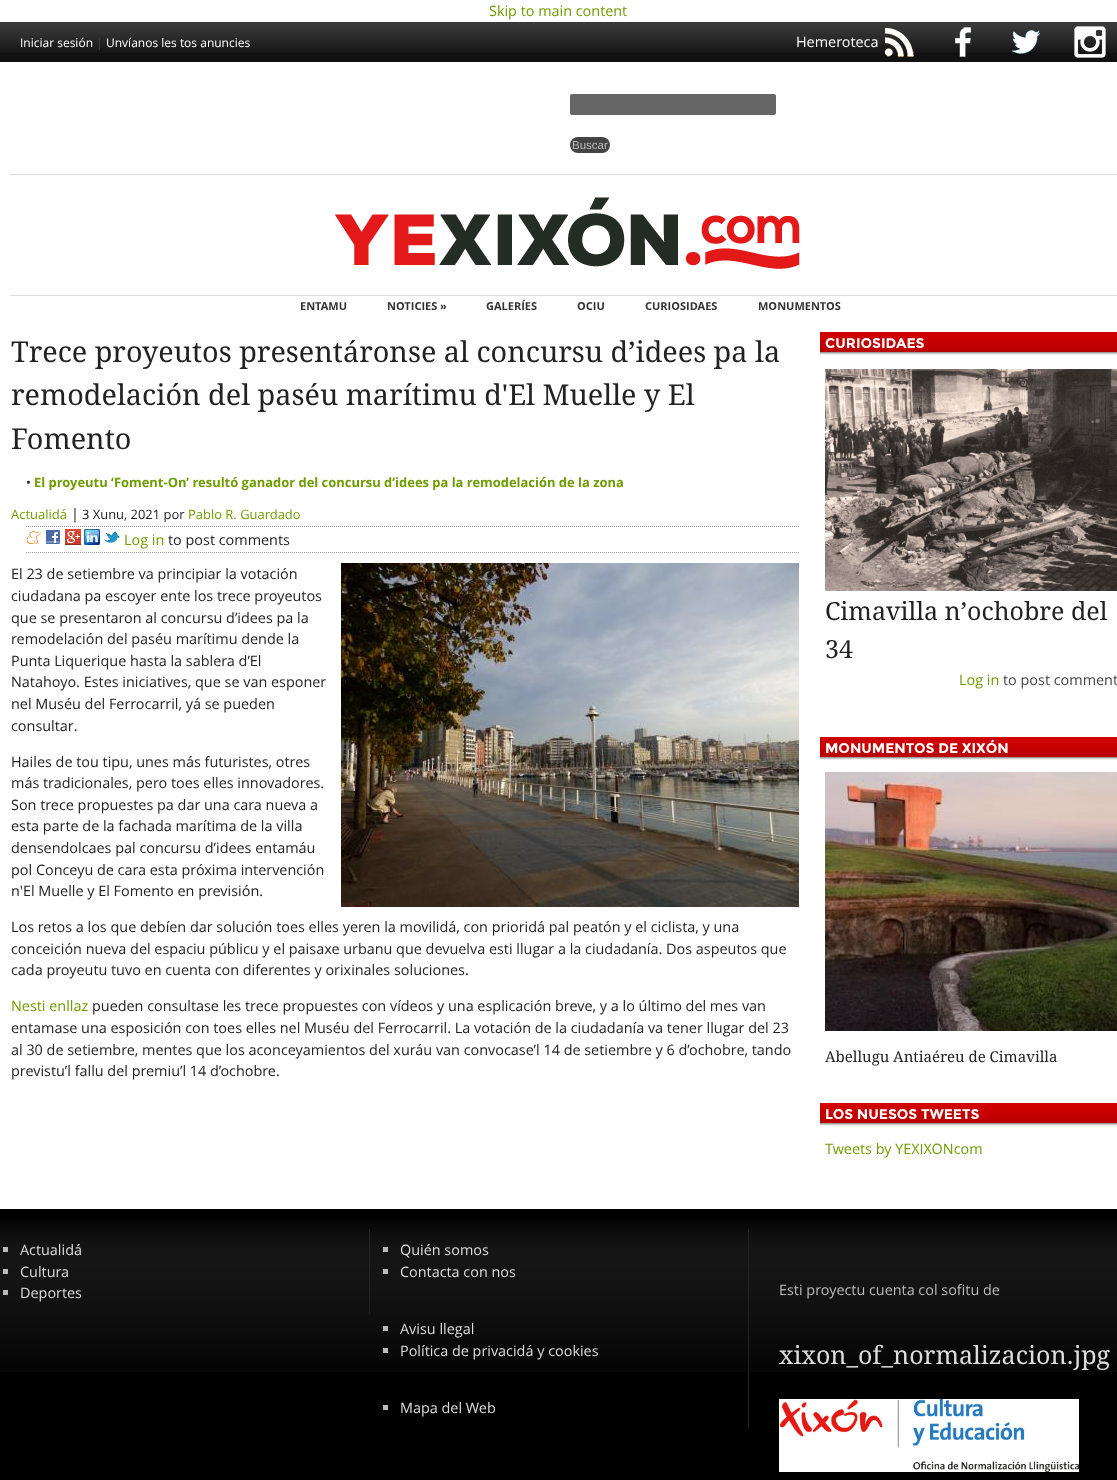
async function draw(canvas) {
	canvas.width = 1117;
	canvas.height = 1480;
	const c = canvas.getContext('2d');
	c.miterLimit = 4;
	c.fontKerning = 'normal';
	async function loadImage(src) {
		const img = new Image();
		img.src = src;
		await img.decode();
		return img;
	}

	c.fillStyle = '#fff';
	c.fillRect(0, 0, 1117, 1480);
	c.font = '14.4px Open Sans';
	c.fillStyle = '#6f9c00';
	c.fillText('Skip to main content', 489, 16);
	c.fillStyle = '#111';
	c.fillRect(0, 53, 1117, 9);
	c.drawImage(await loadImage('img1.png'), 0, 22, 1117, 31);
	c.font = '12px Open Sans';
	c.fillStyle = '#fff';
	c.fillText('Iniciar sesión', 20, 47);
	c.fillStyle = '#444';
	c.fillText('|', 96, 47);
	c.fillStyle = '#fff';
	c.fillText('Unvíanos les tos anuncies', 106, 47);
	c.font = '14.4px Open Sans';
	c.fillText('Hemeroteca', 796, 47);
	c.drawImage(await loadImage('img2.png'), 885, 28, 29, 29);
	c.drawImage(await loadImage('img3.png'), 955, 27, 16, 30);
	c.drawImage(await loadImage('img4.png'), 1012, 30, 28, 24);
	c.drawImage(await loadImage('img5.png'), 1074, 26, 32, 32);
	c.fillStyle = '#666';
	c.beginPath();
	c.roundRect(570, 94, 206, 21, 2);
	c.fill();
	c.fillStyle = '#444';
	c.beginPath();
	c.roundRect(570, 137, 40, 16, 8);
	c.fill();
	c.font = '11.5px Liberation Sans';
	c.fillStyle = '#bbb';
	c.fillText('Buscar', 572, 149);
	c.fillStyle = '#ddd';
	c.fillRect(10, 174, 1107, 1);
	c.drawImage(await loadImage('img6.png'), 335, 197, 465, 72);
	c.fillRect(10, 295, 1107, 1);
	c.font = 'bold 11px Open Sans';
	c.fillStyle = '#333';
	for (const [text, x, y] of [
		['ENTAMU', 300, 310],
		['NOTICIES »', 387, 310],
		['GALERÍES', 486, 310],
		['OCIU', 577, 310],
		['CURIOSIDAES', 645, 310],
		['MONUMENTOS', 758, 310],
	]) {
		c.fillText(text, x, y);
	}
	c.font = '28.8px Droid Serif';
	c.fillStyle = '#222';
	for (const [text, x, y] of [
		['Trece proyeutos presentáronse al concursu d’idees pa la', 11, 362],
		['remodelación del paséu marítimu d\'El Muelle y El', 11, 405],
		['Fomento', 11, 449],
	]) {
		c.fillText(text, x, y);
	}
	c.font = '13px Open Sans';
	c.fillText('•', 26, 487);
	c.font = 'bold 12.95px Open Sans';
	c.fillStyle = '#6f9c00';
	c.fillText('El proyeutu ‘Foment-On’ resultó ganador del concursu d’idees pa la remodelación de la zona', 34, 487);
	c.font = '13px Open Sans';
	c.fillText('Actualidá', 11, 519);
	c.font = '14.4px Open Sans';
	c.fillStyle = '#222';
	c.fillText('|', 71, 519);
	c.font = '12.95px Open Sans';
	c.fillText('3 Xunu, 2021 por', 82, 519);
	c.fillStyle = '#6f9c00';
	c.fillText('Pablo R. Guardado', 188, 519);
	c.beginPath();
	c.moveTo(26, 526.5);
	c.lineTo(799, 526.5);
	c.strokeStyle = '#999';
	c.setLineDash([1, 1]);
	c.stroke();
	c.beginPath();
	c.moveTo(26, 552.5);
	c.lineTo(799, 552.5);
	c.stroke();
	c.drawImage(await loadImage('img7.png'), 26, 530, 15, 15);
	c.drawImage(await loadImage('img8.png'), 46, 530, 14, 14);
	c.drawImage(await loadImage('img9.png'), 65, 529, 16, 16);
	c.drawImage(await loadImage('img10.png'), 84, 529, 16, 16);
	c.drawImage(await loadImage('img11.png'), 104, 531, 16, 12);
	c.font = '14.4px Open Sans';
	c.fillText('Log in', 124, 545);
	c.fillStyle = '#222';
	c.fillText('to post comments', 168, 545);
	c.drawImage(await loadImage('img12.png'), 341, 563, 458, 344);
	for (const [text, x, y] of [
		['El 23 de setiembre va principiar la votación', 11, 579],
		['ciudadana pa escoyer ente los trece proyeutos', 11, 601],
		['que se presentaron al concursu d’idees pa la', 11, 623],
		['remodelación del paséu marítimu dende la', 11, 644],
		['Punta Liquerique hasta la sablera d’El', 11, 666],
		['Natahoyo. Estes iniciatives, que se van esponer', 11, 687],
		['nel Muséu del Ferrocarril, yá se pueden', 11, 709],
		['consultar.', 11, 731],
		['Hailes de tou tipu, unes más futuristes, otres', 11, 767],
		['más tradicionales, pero toes elles innovadores.', 11, 788],
		['Son trece propuestes pa dar una cara nueva a', 11, 810],
		['esta parte de la fachada marítima de la villa', 11, 831],
		['densendolcaes pal concursu d’idees entamáu', 11, 853],
		['pol Conceyu de cara esta próxima intervención', 11, 875],
		['n\'El Muelle y El Fomento en previsión.', 11, 896],
		['Los retos a los que debíen dar solución toes elles yeren la movilidá, con prioridá pal peatón y el ciclista, y una', 11, 932],
		['conceición nueva del espaciu públicu y el paisaxe urbanu que devuelva esti llugar a la ciudadanía. Dos aspeutos que', 11, 954],
		['cada proyeutu tuvo en cuenta con diferentes y orixinales soluciones.', 11, 975],
	]) {
		c.fillText(text, x, y);
	}
	c.fillStyle = '#6f9c00';
	c.fillText('Nesti enllaz', 11, 1011);
	c.fillStyle = '#222';
	for (const [text, x, y] of [
		['pueden consultase les trece propuestes con vídeos y una esplicación breve, y a lo último del mes van', 92, 1011],
		['entamase una esposición con toes elles nel Muséu del Ferrocarril. La votación de la ciudadanía va tener llugar del 23', 11, 1033],
		['al 30 de setiembre, mentes que los aconceyamientos del xuráu van convocase’l 14 de setiembre y 6 d’ochobre, tando', 11, 1055],
		['previstu’l fallu del premiu’l 14 d’ochobre.', 11, 1076],
	]) {
		c.fillText(text, x, y);
	}
	c.drawImage(await loadImage('img13.png'), 820, 332, 297, 23);
	c.font = 'bold 14px Montserrat';
	c.fillStyle = '#fff';
	c.fillText('CURIOSIDAES', 825, 348);
	c.drawImage(await loadImage('img14.png'), 825, 369, 292, 222);
	c.font = '25px Droid Serif';
	c.fillStyle = '#222';
	c.fillText('Cimavilla n’ochobre del', 825, 620);
	c.fillText('34', 825, 658);
	c.font = '14.4px Open Sans';
	c.fillStyle = '#6f9c00';
	c.fillText('Log in', 959, 685);
	c.fillStyle = '#444';
	c.fillText('to post comment', 1003, 685);
	c.drawImage(await loadImage('img13.png'), 820, 737, 297, 23);
	c.font = 'bold 14px Montserrat';
	c.fillStyle = '#fff';
	c.fillText('MONUMENTOS DE XIXÓN', 825, 753);
	c.drawImage(await loadImage('img15.png'), 825, 772, 292, 259);
	c.font = '15px Droid Serif';
	c.fillStyle = '#222';
	c.fillText('Abellugu Antiaéreu de Cimavilla', 825, 1062);
	c.drawImage(await loadImage('img13.png'), 820, 1103, 297, 23);
	c.font = 'bold 14px Montserrat';
	c.fillStyle = '#fff';
	c.fillText('LOS NUESOS TWEETS', 825, 1119);
	c.font = '14.4px Open Sans';
	c.fillStyle = '#6f9c00';
	c.fillText('Tweets by YEXIXONcom', 825, 1154);
	c.fillStyle = '#000';
	c.fillRect(0, 1209, 1117, 271);
	c.drawImage(await loadImage('img16.png'), 0, 1220, 1117, 152);
	c.fillStyle = '#222';
	c.fillRect(369, 1229, 1, 85);
	c.fillStyle = '#bbb';
	c.fillRect(3, 1247, 5, 5);
	c.fillStyle = '#ddd';
	c.fillText('Actualidá', 20, 1255);
	c.fillStyle = '#bbb';
	c.fillRect(3, 1269, 5, 5);
	c.fillStyle = '#ddd';
	c.fillText('Cultura', 20, 1277);
	c.fillStyle = '#bbb';
	c.fillRect(3, 1290, 5, 5);
	c.fillStyle = '#ddd';
	c.fillText('Deportes', 20, 1298);
	c.fillStyle = '#222';
	c.fillRect(748, 1229, 1, 200);
	c.fillStyle = '#bbb';
	c.fillRect(383, 1247, 5, 5);
	c.fillStyle = '#ddd';
	c.fillText('Quién somos', 400, 1255);
	c.fillStyle = '#bbb';
	c.fillRect(383, 1269, 5, 5);
	c.fillStyle = '#ddd';
	c.fillText('Contacta con nos', 400, 1277);
	c.fillStyle = '#bbb';
	c.fillRect(383, 1326, 5, 5);
	c.fillStyle = '#ddd';
	c.fillText('Avisu llegal', 400, 1334);
	c.fillStyle = '#bbb';
	c.fillRect(383, 1348, 5, 5);
	c.fillStyle = '#ddd';
	c.fillText('Política de privacidá y cookies', 400, 1356);
	c.fillStyle = '#bbb';
	c.fillRect(383, 1405, 5, 5);
	c.fillStyle = '#ddd';
	c.fillText('Mapa del Web', 400, 1413);
	c.fillStyle = '#bbb';
	c.fillText('Esti proyectu cuenta col sofitu de', 779, 1295);
	c.font = '25px Droid Serif';
	c.fillStyle = '#ddd';
	c.fillText('xixon_of_normalizacion.jpg', 779, 1364);
	c.drawImage(await loadImage('img17.png'), 779, 1399, 300, 73);
}

draw(document.querySelector('canvas'));
